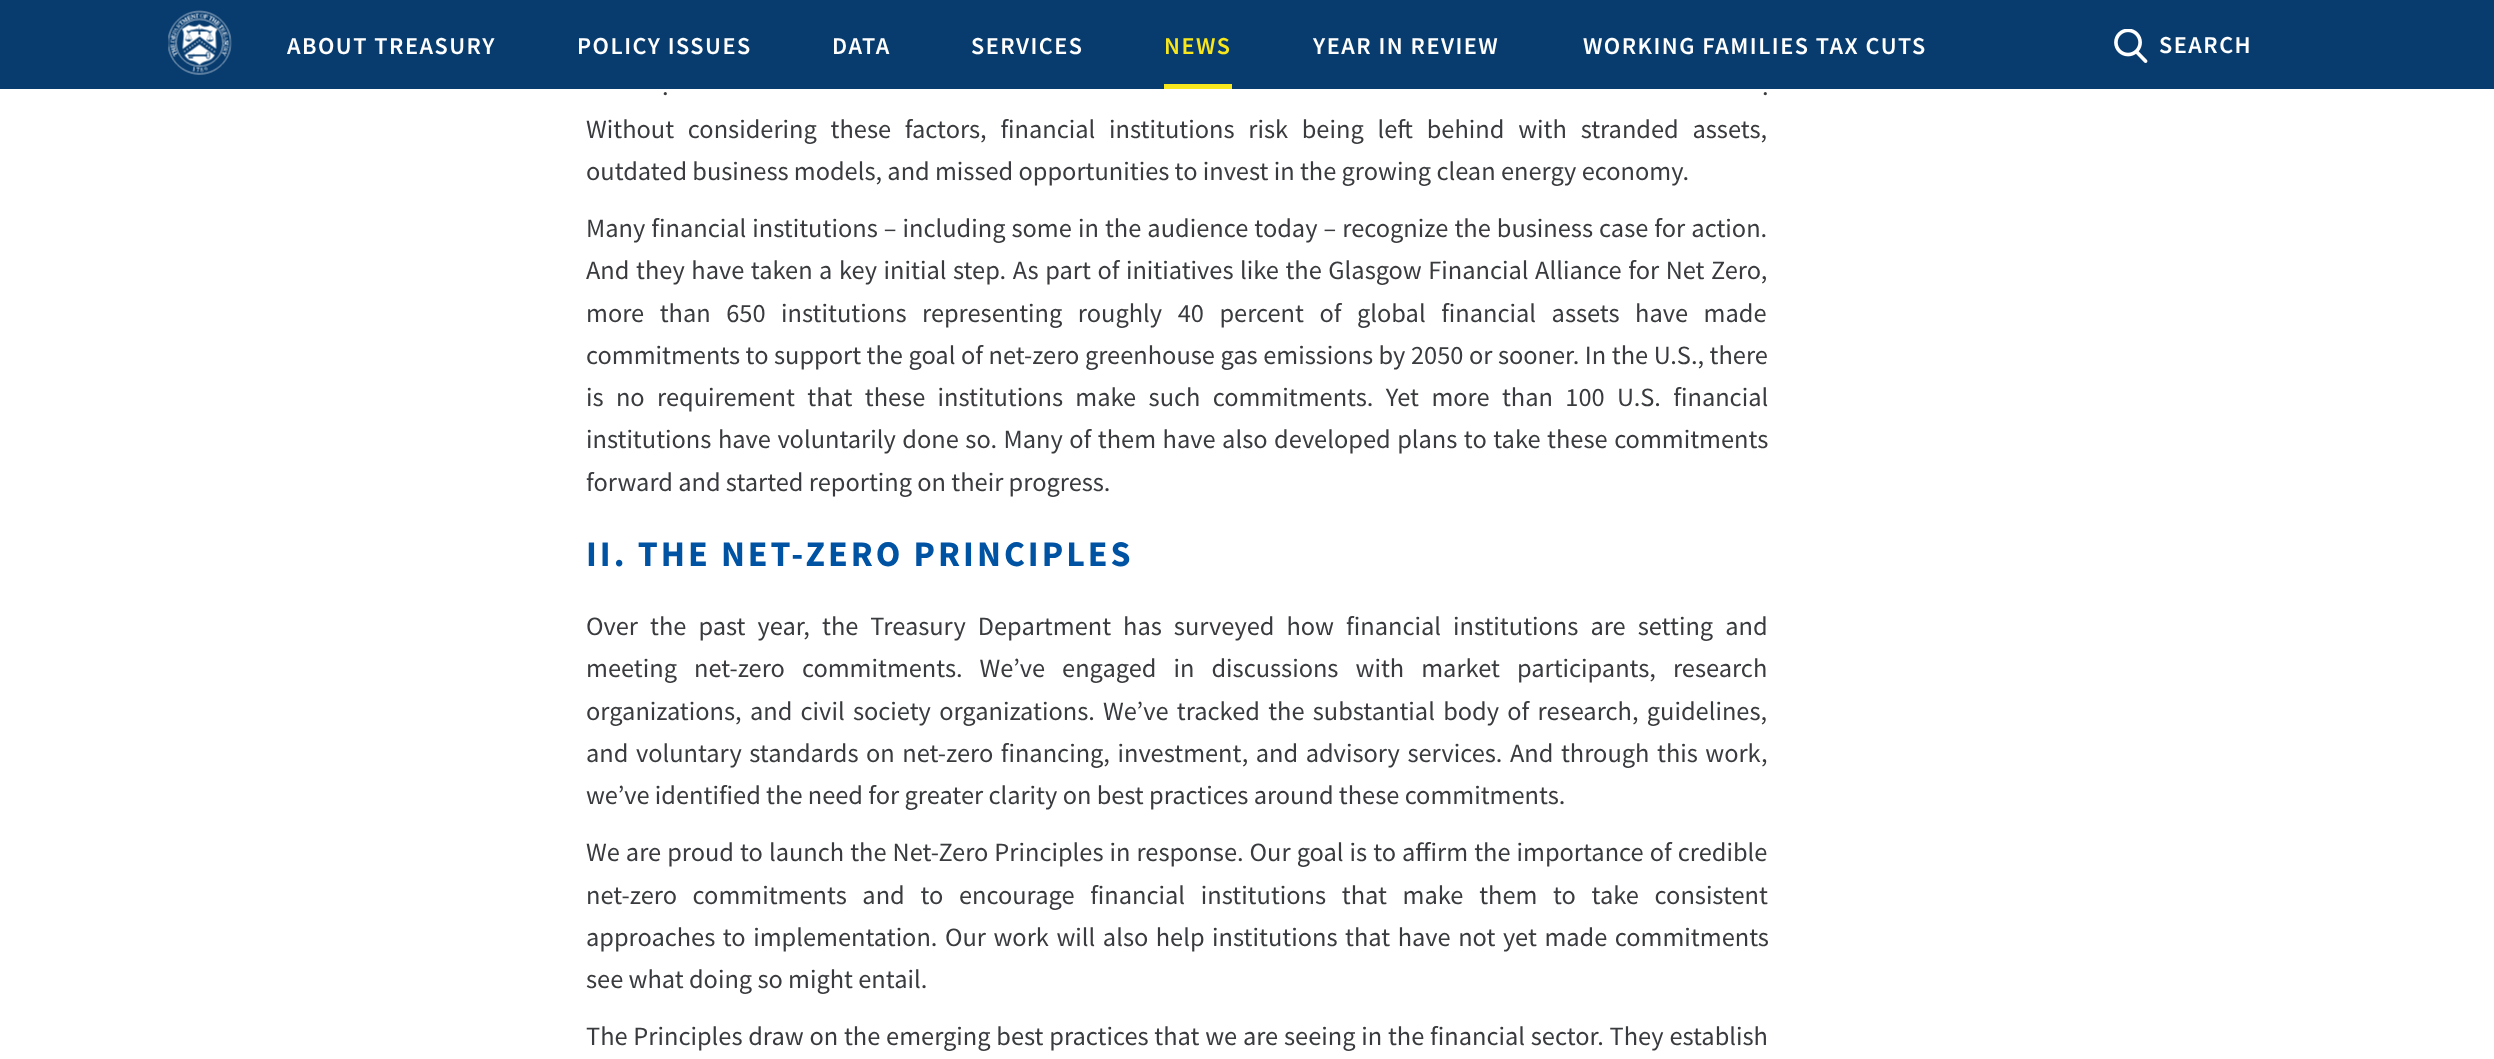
async function draw(canvas) {
	canvas.width = 2494;
	canvas.height = 1059;
	const c = canvas.getContext('2d');
	c.miterLimit = 4;
	c.fontKerning = 'normal';
	async function loadImage(src) {
		const img = new Image();
		img.src = src;
		await img.decode();
		return img;
	}

	c.fillStyle = '#fff';
	c.fillRect(0, 0, 2494, 1059);
	c.fillStyle = '#083c6f';
	c.fillRect(0, 0, 2494, 89);
	c.drawImage(await loadImage('img1.png'), 168, 10, 64, 65);
	c.letterSpacing = '1.5px';
	c.font = '600 24.25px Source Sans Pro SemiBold';
	c.fillStyle = '#fff';
	for (const [text, x, y] of [
		['ABOUT TREASURY', 287, 54],
		['POLICY ISSUES', 577, 54],
		['DATA', 832, 54],
		['SERVICES', 971, 54],
	]) {
		c.fillText(text, x, y);
	}
	c.fillStyle = '#f8e71c';
	c.fillText('NEWS', 1164, 54);
	c.fillRect(1164, 84, 68, 5);
	c.fillStyle = '#fff';
	c.fillText('YEAR IN REVIEW', 1313, 54);
	c.fillText('WORKING FAMILIES TAX CUTS', 1583, 54);
	c.drawImage(await loadImage('img2.png'), 2114, 29, 34, 34);
	c.fillText('SEARCH', 2159, 53);
	c.letterSpacing = '0px';
	c.wordSpacing = '4px';
	c.font = '26.4px Source Sans Pro';
	c.fillStyle = '#393b3e';
	c.fillText('.', 662, 95);
	c.fillText('.', 1762, 95);
	c.wordSpacing = '8.5px';
	c.fillText('Without considering these factors, financial institutions risk being left behind with stranded assets,', 586, 138);
	c.wordSpacing = '0px';
	c.fillText('outdated business models, and missed opportunities to invest in the growing clean energy economy.', 586, 180);
	c.wordSpacing = '0.8px';
	c.fillText('Many financial institutions – including some in the audience today – recognize the business case for action.', 586, 237);
	c.wordSpacing = '1.25px';
	c.fillText('And they have taken a key initial step. As part of initiatives like the Glasgow Financial Alliance for Net Zero,', 586, 279);
	c.wordSpacing = '10.25px';
	c.fillText('more than 650 institutions representing roughly 40 percent of global financial assets have made', 586, 322);
	c.wordSpacing = '0.25px';
	c.fillText('commitments to support the goal of net-zero greenhouse gas emissions by 2050 or sooner. In the U.S., there', 586, 364);
	c.wordSpacing = '7.1px';
	c.fillText('is no requirement that these institutions make such commitments. Yet more than 100 U.S. financial', 586, 406);
	c.wordSpacing = '1.25px';
	c.fillText('institutions have voluntarily done so. Many of them have also developed plans to take these commitments', 586, 448);
	c.wordSpacing = '0px';
	c.fillText('forward and started reporting on their progress.', 586, 491);
	c.letterSpacing = '3px';
	c.font = 'bold 36px Source Sans Pro';
	c.fillStyle = '#0053a3';
	c.fillText('II. THE NET-ZERO PRINCIPLES', 586, 566);
	c.letterSpacing = '0px';
	c.wordSpacing = '6.75px';
	c.font = '26.4px Source Sans Pro';
	c.fillStyle = '#393b3e';
	c.fillText('Over the past year, the Treasury Department has surveyed how financial institutions are setting and', 586, 635);
	c.wordSpacing = '11.75px';
	c.fillText('meeting net-zero commitments. We’ve engaged in discussions with market participants, research', 586, 677);
	c.wordSpacing = '3px';
	c.fillText('organizations, and civil society organizations. We’ve tracked the substantial body of research, guidelines,', 586, 720);
	c.wordSpacing = '2.25px';
	c.fillText('and voluntary standards on net-zero financing, investment, and advisory services. And through this work,', 586, 762);
	c.wordSpacing = '0px';
	c.fillText('we’ve identified the need for greater clarity on best practices around these commitments.', 586, 804);
	c.wordSpacing = '0.75px';
	c.fillText('We are proud to launch the Net-Zero Principles in response. Our goal is to affirm the importance of credible', 586, 861);
	c.wordSpacing = '10.4px';
	c.fillText('net-zero commitments and to encourage financial institutions that make them to take consistent', 586, 904);
	c.wordSpacing = '2.25px';
	c.fillText('approaches to implementation. Our work will also help institutions that have not yet made commitments', 586, 946);
	c.wordSpacing = '0px';
	c.fillText('see what doing so might entail.', 586, 988);
	c.wordSpacing = '0.5px';
	c.fillText('The Principles draw on the emerging best practices that we are seeing in the financial sector. They establish', 586, 1045);
}

draw(document.querySelector('canvas'));
